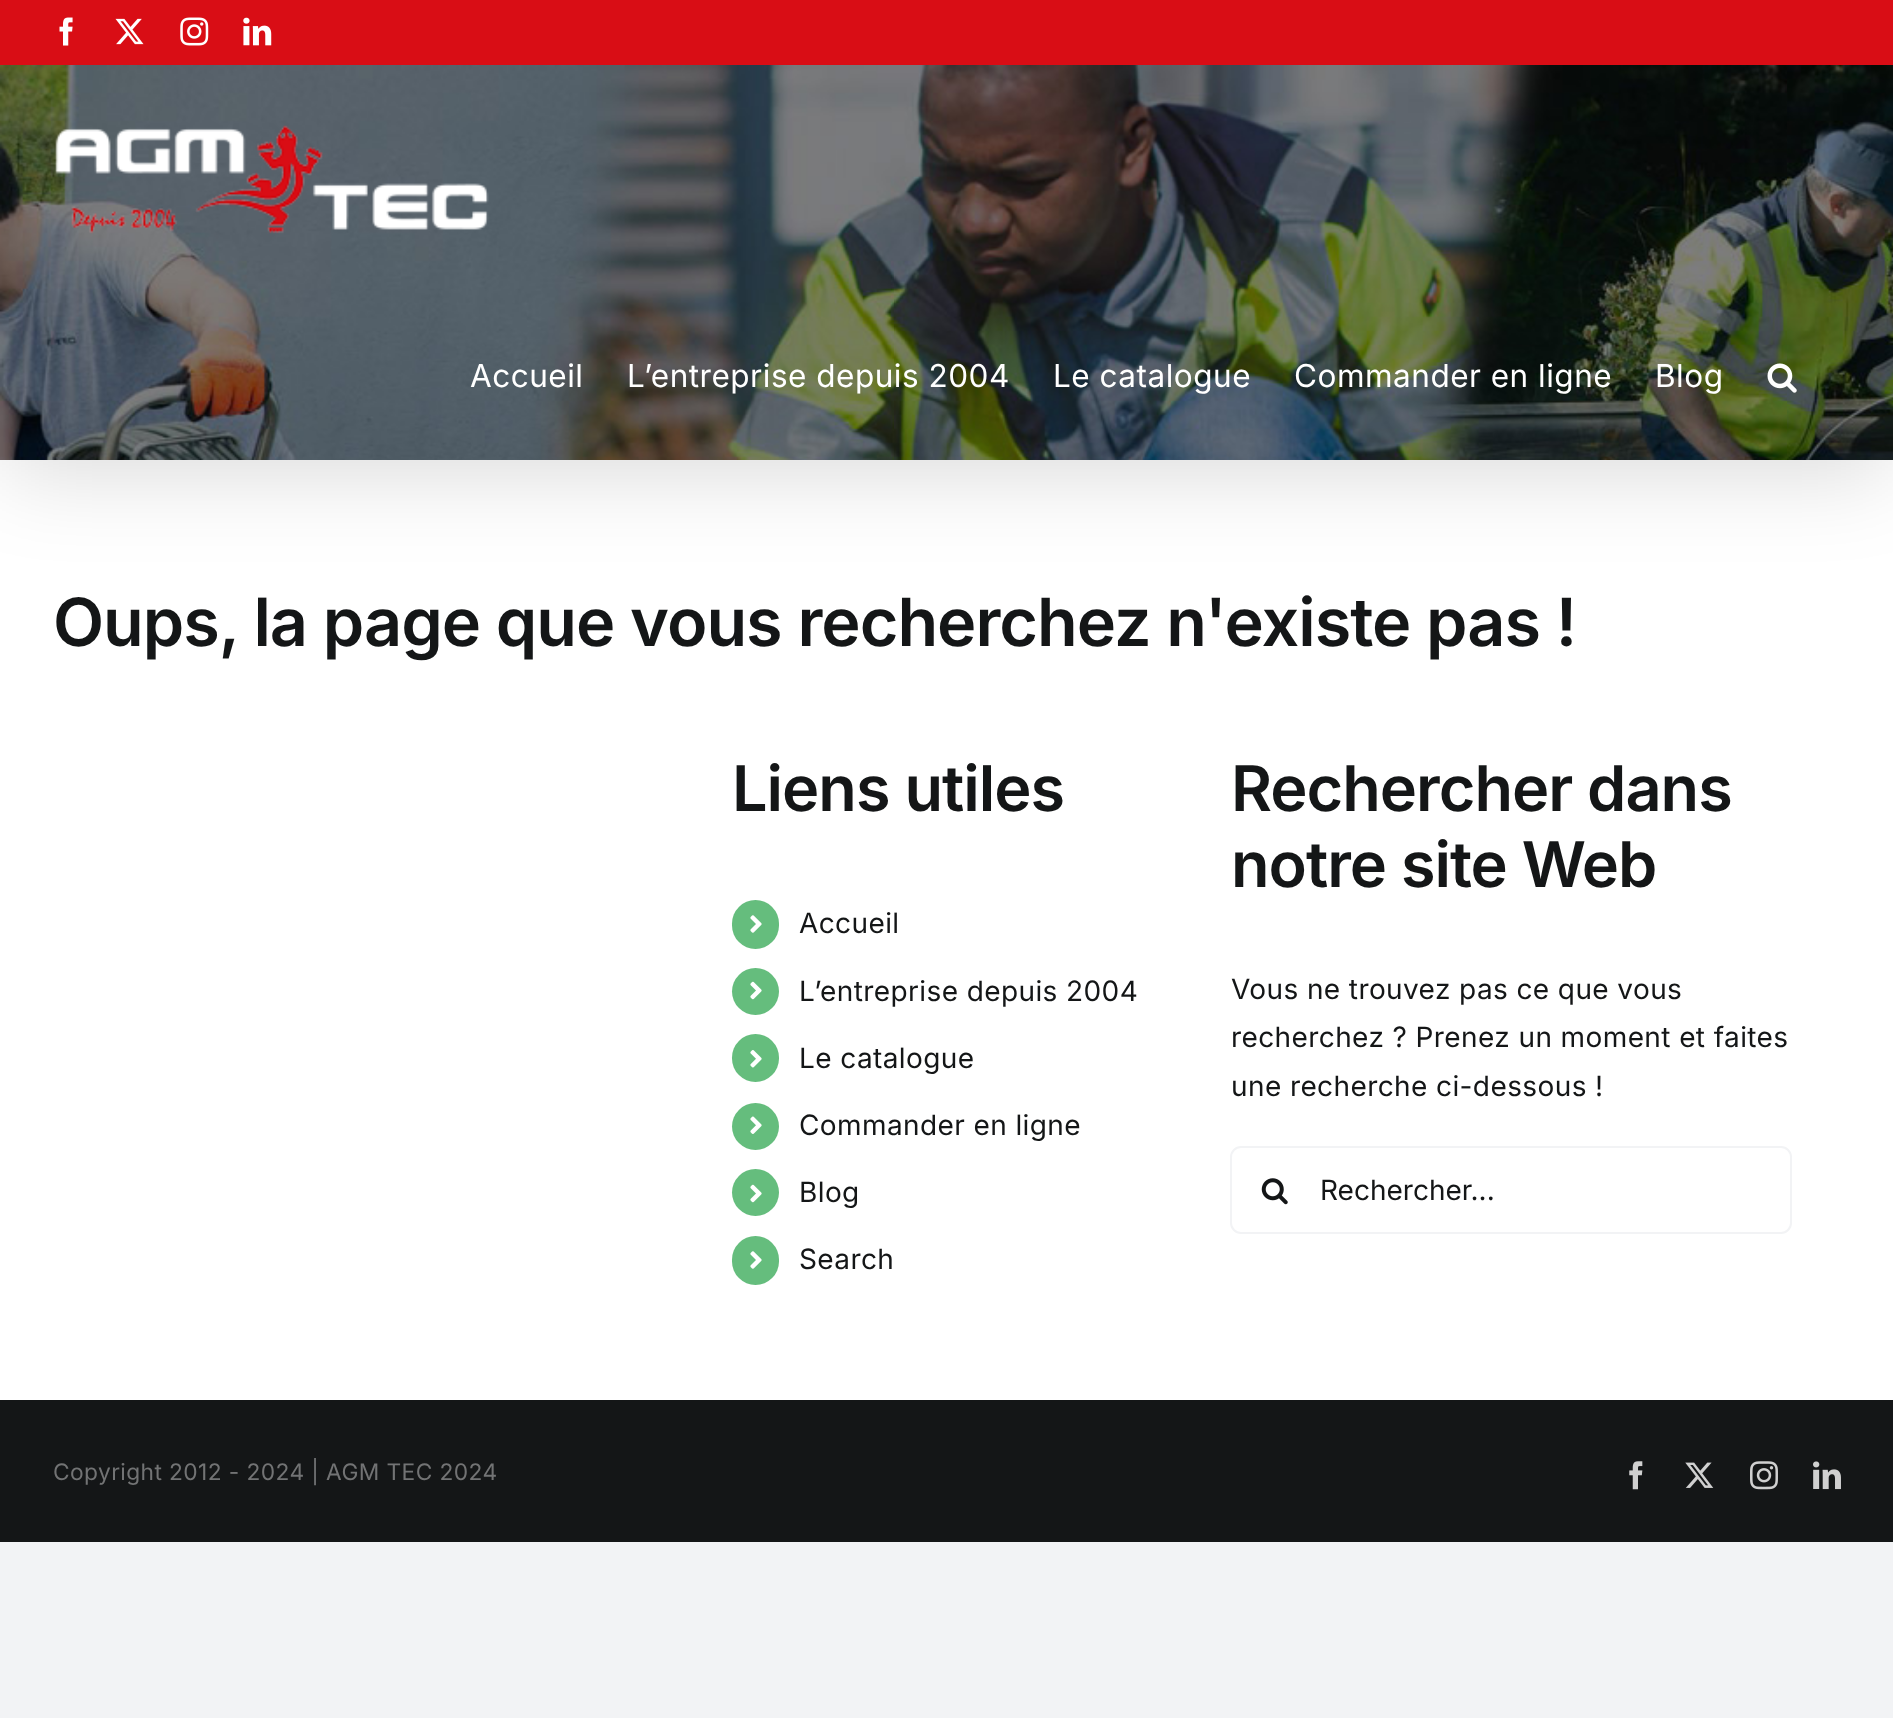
async function draw(canvas) {
	canvas.width = 1893;
	canvas.height = 1718;
	const c = canvas.getContext('2d');
	c.miterLimit = 4;
	c.fontKerning = 'normal';
	async function loadImage(src) {
		const img = new Image();
		img.src = src;
		await img.decode();
		return img;
	}

	c.fillStyle = '#f2f3f5';
	c.fillRect(0, 0, 1893, 1718);
	c.fillStyle = '#fff';
	c.fillRect(0, 460, 1893, 940);
	c.fillStyle = '#00000024';
	c.filter = 'blur(44px)';
	c.beginPath();
	c.rect(4, 21, 1886, 453);
	c.fill();
	c.filter = 'none';
	c.fillStyle = '#d90d15';
	c.fillRect(0, 0, 1893, 65);
	c.drawImage(await loadImage('img1.png'), 59, 17, 14, 29);
	c.drawImage(await loadImage('img2.png'), 115, 18, 29, 27);
	c.drawImage(await loadImage('img3.png'), 180, 17, 29, 29);
	c.drawImage(await loadImage('img4.png'), 243, 17, 29, 29);
	c.drawImage(await loadImage('img5.png'), 0, 65, 1893, 395);
	c.drawImage(await loadImage('img6.png'), 54, 125, 435, 109);
	c.letterSpacing = '0.5px';
	c.font = '31.5px Inter';
	c.fillStyle = '#fff';
	for (const [text, x, y] of [
		['Accueil', 470, 387],
		['L’entreprise depuis 2004', 627, 387],
		['Le catalogue', 1053, 387],
		['Commander en ligne', 1294, 387],
		['Blog', 1655, 387],
	]) {
		c.fillText(text, x, y);
	}
	c.drawImage(await loadImage('img7.png'), 1767, 363, 30, 30);
	c.letterSpacing = '-1px';
	c.font = '600 66.5px Inter';
	c.fillStyle = '#141617';
	c.fillText('Oups, la page que vous recherchez n\'existe pas !', 53, 646);
	c.font = '600 63px Inter';
	c.fillText('Liens utiles', 732, 811);
	c.fillStyle = '#65bd7d';
	c.beginPath();
	c.roundRect(732, 900, 47, 49, 23.5);
	c.fill();
	c.drawImage(await loadImage('img8.png'), 750, 915, 12, 18);
	c.letterSpacing = '0.4px';
	c.font = '28px Inter';
	c.fillStyle = '#141617';
	c.fillText('Accueil', 799, 933);
	c.fillStyle = '#65bd7d';
	c.beginPath();
	c.arc(755.5, 991.5, 23.5, 0, 2 * Math.PI);
	c.fill();
	c.drawImage(await loadImage('img9.png'), 750, 981, 12, 19);
	c.fillStyle = '#141617';
	c.fillText('L’entreprise depuis 2004', 799, 1001);
	c.fillStyle = '#65bd7d';
	c.beginPath();
	c.roundRect(732, 1034, 47, 48, 23.5);
	c.fill();
	c.drawImage(await loadImage('img10.png'), 750, 1050, 12, 18);
	c.fillStyle = '#141617';
	c.fillText('Le catalogue', 799, 1068);
	c.fillStyle = '#65bd7d';
	c.beginPath();
	c.arc(755.5, 1126.5, 23.5, 0, 2 * Math.PI);
	c.fill();
	c.drawImage(await loadImage('img11.png'), 750, 1116, 12, 18);
	c.fillStyle = '#141617';
	c.fillText('Commander en ligne', 799, 1135);
	c.fillStyle = '#65bd7d';
	c.beginPath();
	c.arc(755.5, 1192.5, 23.5, 0, 2 * Math.PI);
	c.fill();
	c.drawImage(await loadImage('img9.png'), 750, 1184, 12, 19);
	c.fillStyle = '#141617';
	c.fillText('Blog', 799, 1202);
	c.fillStyle = '#65bd7d';
	c.beginPath();
	c.roundRect(732, 1236, 47, 49, 23.5);
	c.fill();
	c.drawImage(await loadImage('img8.png'), 750, 1251, 12, 18);
	c.fillStyle = '#141617';
	c.fillText('Search', 799, 1269);
	c.letterSpacing = '-1px';
	c.font = '600 63px Inter';
	c.fillText('Rechercher dans', 1231, 811);
	c.fillText('notre site Web', 1231, 887);
	c.letterSpacing = '0.4px';
	c.font = '28px Inter';
	for (const [text, x, y] of [
		['Vous ne trouvez pas ce que vous', 1231, 999],
		['recherchez ? Prenez un moment et faites', 1231, 1047],
		['une recherche ci-dessous !', 1231, 1096],
	]) {
		c.fillText(text, x, y);
	}
	c.beginPath();
	c.roundRect(1231, 1147, 560, 86, 10);
	c.strokeStyle = '#f2f3f5';
	c.lineWidth = 2;
	c.stroke();
	c.drawImage(await loadImage('img12.png'), 1261, 1178, 27, 27);
	c.letterSpacing = '0px';
	c.fillText('Rechercher...', 1320, 1200);
	c.fillRect(0, 1400, 1893, 142);
	c.letterSpacing = '0.4px';
	c.font = '22.75px Inter';
	c.fillStyle = '#727374';
	c.fillText('Copyright 2012 - 2024 | AGM TEC 2024', 53, 1480);
	c.drawImage(await loadImage('img13.png'), 1629, 1461, 14, 29);
	c.drawImage(await loadImage('img14.png'), 1685, 1462, 29, 26);
	c.drawImage(await loadImage('img15.png'), 1750, 1461, 28, 29);
	c.drawImage(await loadImage('img16.png'), 1813, 1461, 28, 29);
}

draw(document.querySelector('canvas'));
